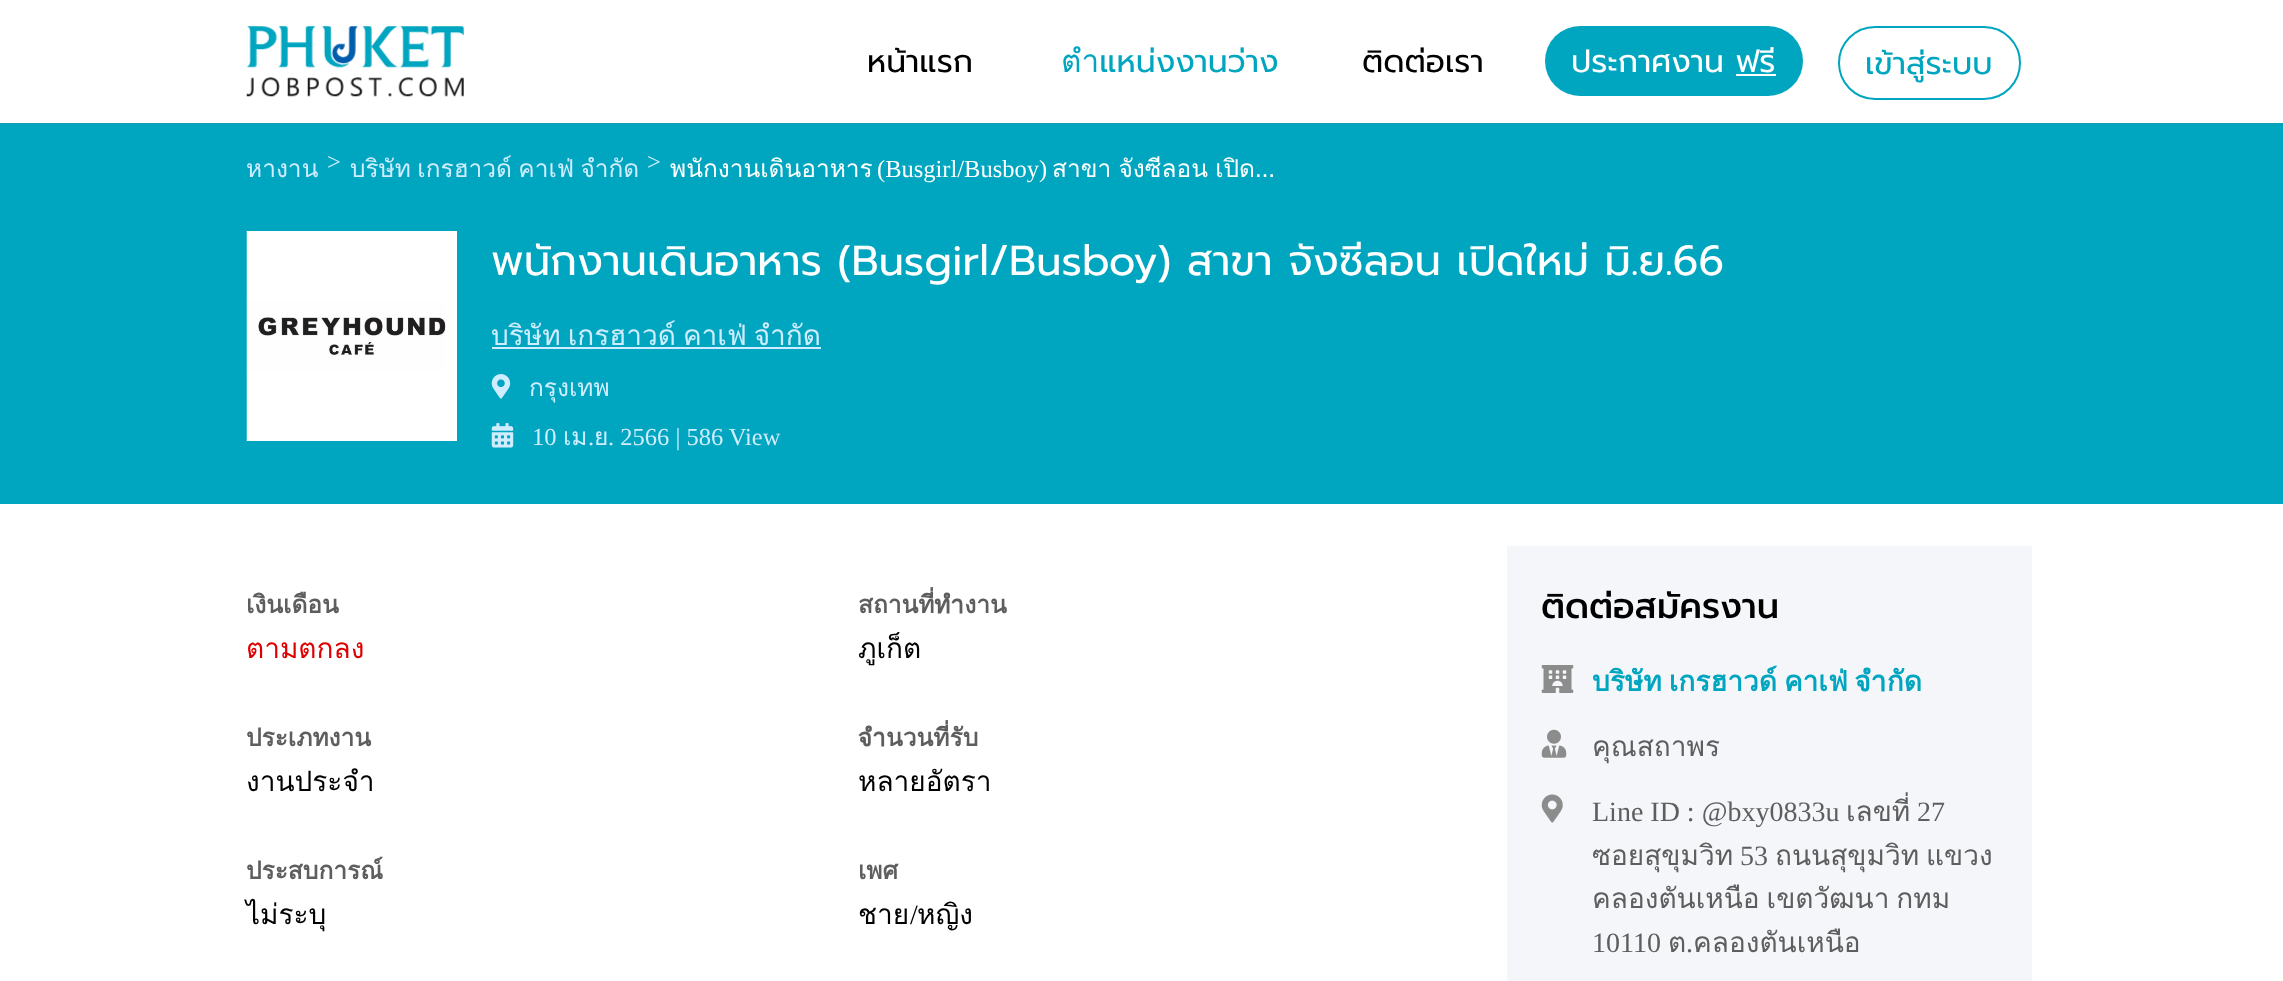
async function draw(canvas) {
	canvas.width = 2283;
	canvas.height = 981;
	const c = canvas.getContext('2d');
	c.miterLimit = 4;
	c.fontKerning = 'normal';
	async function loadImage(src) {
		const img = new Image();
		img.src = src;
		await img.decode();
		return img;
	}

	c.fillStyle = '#fff';
	c.fillRect(0, 0, 2283, 981);
	c.fillStyle = '#00a5bf';
	c.fillRect(0, 123, 2283, 381);
	c.fillStyle = '#70707029';
	c.filter = 'blur(1px)';
	c.beginPath();
	c.rect(0, 2, 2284, 122);
	c.fill();
	c.filter = 'none';
	c.fillStyle = '#fff';
	c.fillRect(0, 1, 2283, 122);
	c.drawImage(await loadImage('img1.png'), 246, 26, 218, 71);
	c.font = '31.5px Prompt';
	c.fillStyle = '#000';
	c.fillText('หน้าแรก', 867, 72);
	c.fillStyle = '#00a5bf';
	c.fillText('ตำแหน่งงานว่าง', 1061, 72);
	c.fillStyle = '#000';
	c.fillText('ติดต่อเรา', 1362, 72);
	c.fillStyle = '#00a5bf';
	c.beginPath();
	c.roundRect(1545, 26, 258, 70, 35);
	c.fill();
	c.fillStyle = '#fff';
	c.fillText('ประกาศงาน ฟรี', 1571, 72);
	c.fillRect(1736, 74, 40, 2);
	c.beginPath();
	c.roundRect(1839, 27, 181, 72, 36);
	c.strokeStyle = '#00a5bf';
	c.lineWidth = 2;
	c.stroke();
	c.fillStyle = '#00a5bf';
	c.fillText('เข้าสู่ระบบ', 1865, 74);
	c.font = '24.5px Loma';
	c.fillStyle = '#cfedff';
	c.fillText('หางาน', 246, 177);
	c.font = '24.5px Liberation Serif';
	c.fillText('>', 327, 170);
	c.wordSpacing = '-2px';
	c.font = '24.5px Loma';
	c.fillText('บริษัท เกรฮาวด์ คาเฟ่ จำกัด', 350, 177);
	c.wordSpacing = '0px';
	c.font = '24.5px Liberation Serif';
	c.fillText('>', 647, 170);
	c.font = '24.5px Loma';
	c.fillStyle = '#fff';
	c.fillText('พนักงานเดินอาหาร', 670, 177);
	c.font = '24.5px Liberation Serif';
	c.fillText('(Busgirl/Busboy)', 877, 177);
	c.wordSpacing = '-1px';
	c.font = '24.5px Loma';
	c.fillText('สาขา จังซีลอน เปิด…', 1052, 177);
	c.fillRect(446, 231, 11, 210);
	c.drawImage(await loadImage('img2.png'), 246, 231, 200, 210);
	c.wordSpacing = '0px';
	c.font = '42px Prompt';
	c.fillText('พนักงานเดินอาหาร (Busgirl/Busboy) สาขา จังซีลอน เปิดใหม่ มิ.ย.66', 491, 275);
	c.wordSpacing = '-2.5px';
	c.font = '28px Loma';
	c.fillStyle = '#cfedff';
	c.fillText('บริษัท เกรฮาวด์ คาเฟ่ จำกัด', 491, 345);
	c.fillRect(492, 347, 329, 2);
	c.drawImage(await loadImage('img3.png'), 491, 374, 20, 25);
	c.wordSpacing = '0px';
	c.font = '24.5px Loma';
	c.fillText('กรุงเทพ', 529, 396);
	c.drawImage(await loadImage('img4.png'), 491, 423, 23, 25);
	c.font = '24.5px Liberation Serif';
	c.fillText('10', 532, 445);
	c.font = '24.5px Loma';
	c.fillText('เม', 563, 445);
	c.font = '24.5px Liberation Serif';
	c.fillText('.', 588, 445);
	c.font = '24.5px Loma';
	c.fillText('ย', 594, 445);
	c.font = '24.5px Liberation Serif';
	c.fillText('. 2566 | 586 View', 608, 445);
	c.font = 'bold 24.5px Loma';
	c.fillStyle = '#5e5e5e';
	c.fillText('เงินเดือน', 246, 613);
	c.font = '28px Loma';
	c.fillStyle = '#df0000';
	c.fillText('ตามตกลง', 246, 658);
	c.font = 'bold 24.5px Loma';
	c.fillStyle = '#5e5e5e';
	c.fillText('สถานที่ทำงาน', 858, 613);
	c.font = '28px Loma';
	c.fillStyle = '#000';
	c.fillText('ภูเก็ต', 858, 658);
	c.font = 'bold 24.5px Loma';
	c.fillStyle = '#5e5e5e';
	c.fillText('ประเภทงาน', 246, 746);
	c.font = '28px Loma';
	c.fillStyle = '#000';
	c.fillText('งานประจำ', 246, 791);
	c.font = 'bold 24.5px Loma';
	c.fillStyle = '#5e5e5e';
	c.fillText('จำนวนที่รับ', 858, 746);
	c.font = '28px Loma';
	c.fillStyle = '#000';
	c.fillText('หลายอัตรา', 858, 791);
	c.font = 'bold 24.5px Loma';
	c.fillStyle = '#5e5e5e';
	c.fillText('ประสบการณ์', 246, 879);
	c.font = '28px Loma';
	c.fillStyle = '#000';
	c.fillText('ไม่ระบุ', 246, 924);
	c.font = 'bold 24.5px Loma';
	c.fillStyle = '#5e5e5e';
	c.fillText('เพศ', 858, 879);
	c.font = '28px Loma';
	c.fillStyle = '#000';
	c.fillText('ชาย', 858, 924);
	c.font = '28px Liberation Serif';
	c.fillText('/', 910, 924);
	c.font = '28px Loma';
	c.fillText('หญิง', 917, 924);
	c.fillStyle = '#f5f6fa';
	c.fillRect(1507, 546, 525, 435);
	c.font = '500 35px Prompt';
	c.fillStyle = '#000';
	c.fillText('ติดต่อสมัครงาน', 1541, 618);
	c.drawImage(await loadImage('img5.png'), 1541, 665, 33, 28);
	c.wordSpacing = '-2.5px';
	c.font = 'bold 28px Loma';
	c.fillStyle = '#00a5bf';
	c.fillText('บริษัท เกรฮาวด์ คาเฟ่ จำกัด', 1592, 691);
	c.drawImage(await loadImage('img6.png'), 1541, 729, 26, 29);
	c.wordSpacing = '0px';
	c.font = '28px Loma';
	c.fillStyle = '#5e5e5e';
	c.fillText('คุณสถาพร', 1592, 756);
	c.drawImage(await loadImage('img7.png'), 1541, 794, 22, 29);
	c.font = '28px Liberation Serif';
	c.fillText('Line ID : @bxy0833u', 1592, 821);
	c.font = '28px Loma';
	c.fillText('เลขที่', 1846, 821);
	c.font = '28px Liberation Serif';
	c.fillText('27', 1917, 821);
	c.font = '28px Loma';
	c.fillText('ซอยสุขุมวิท', 1592, 865);
	c.font = '28px Liberation Serif';
	c.fillText('53', 1740, 865);
	c.wordSpacing = '-2.5px';
	c.font = '28px Loma';
	c.fillText('ถนนสุขุมวิท แขวง', 1775, 865);
	c.fillText('คลองตันเหนือ เขตวัฒนา กทม', 1592, 908);
	c.wordSpacing = '0px';
	c.font = '28px Liberation Serif';
	c.fillText('10110', 1592, 952);
	c.font = '28px Loma';
	c.fillText('ต', 1668, 952);
	c.font = '28px Liberation Serif';
	c.fillText('.', 1686, 952);
	c.font = '28px Loma';
	c.fillText('คลองตันเหนือ', 1693, 952);
}

draw(document.querySelector('canvas'));
